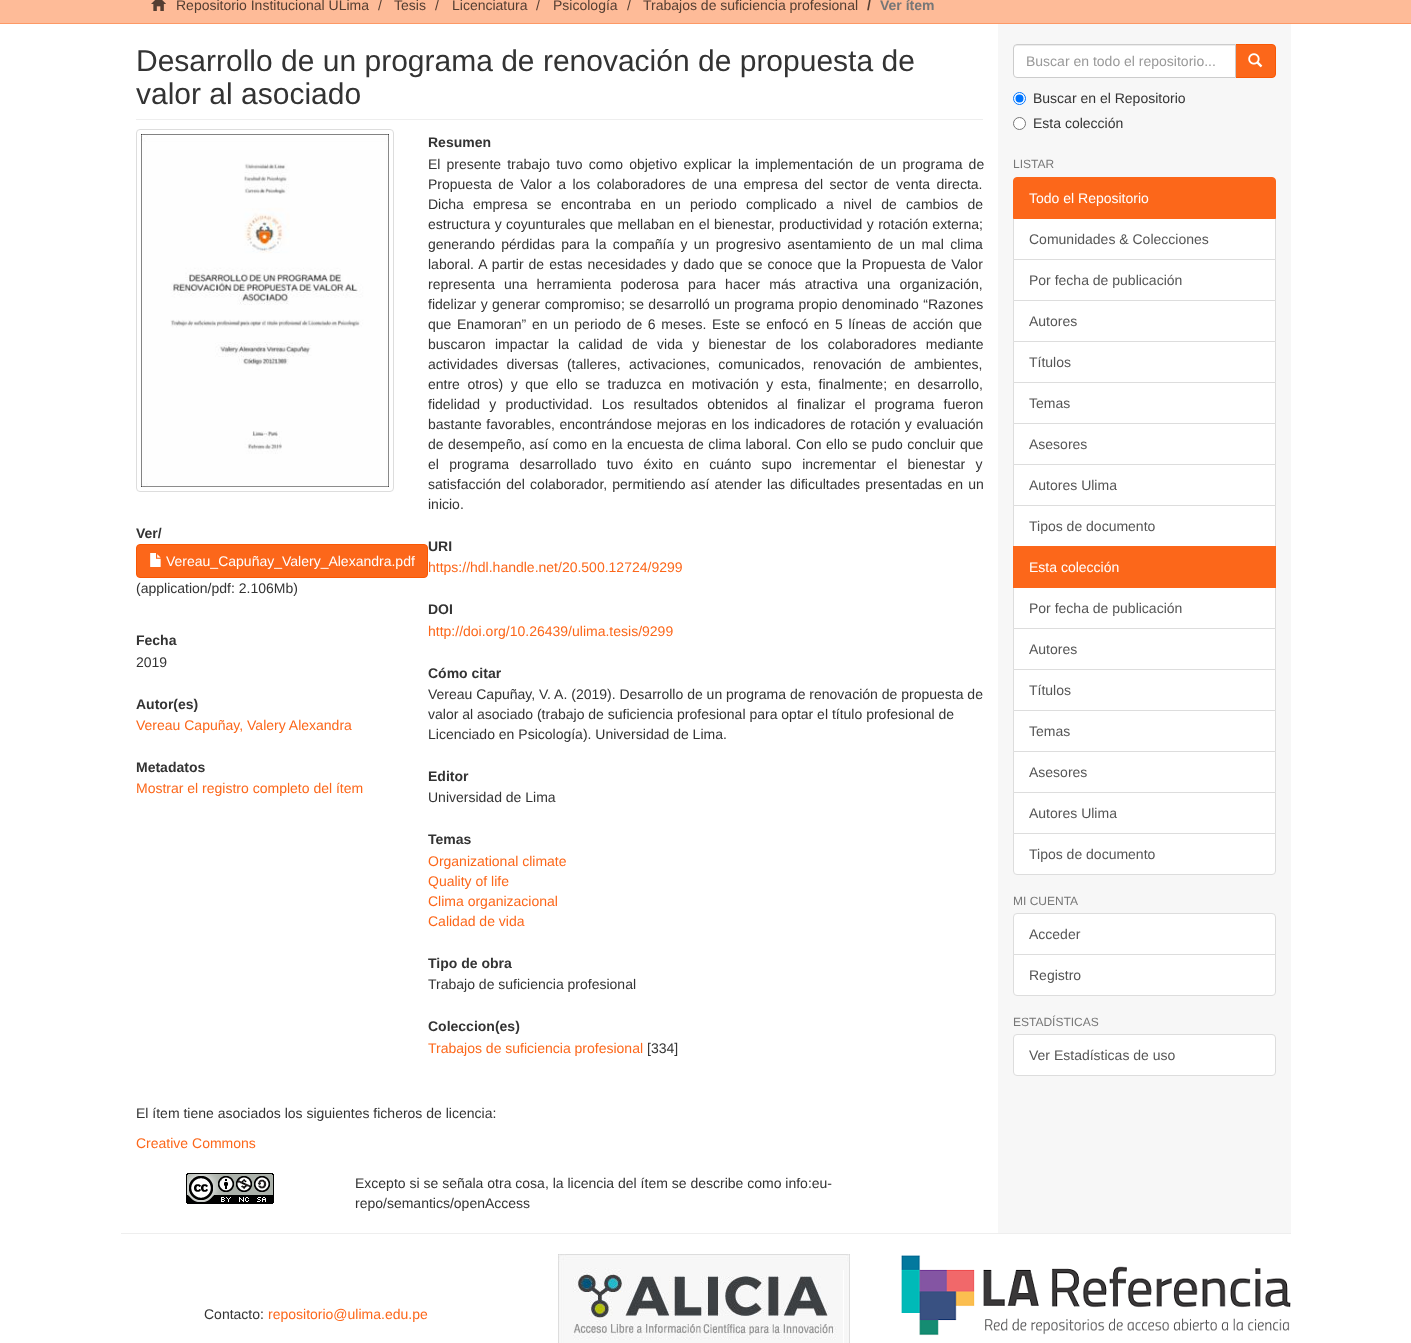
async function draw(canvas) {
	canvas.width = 1411;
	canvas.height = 1343;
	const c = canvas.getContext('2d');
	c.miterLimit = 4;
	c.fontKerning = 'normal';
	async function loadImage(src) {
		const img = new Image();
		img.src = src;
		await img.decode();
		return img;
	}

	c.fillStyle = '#fff';
	c.fillRect(0, 0, 1411, 1343);
	c.fillStyle = '#febb98';
	c.fillRect(0, 0, 1411, 23);
	c.fillStyle = '#fd9966';
	c.fillRect(0, 23, 1411, 1);
	c.drawImage(await loadImage('img1.png'), 151, 0, 15, 11);
	c.font = '14px Liberation Sans';
	c.fillStyle = '#543e32';
	for (const [text, x, y] of [
		['Repositorio Institucional ULima', 176, 10],
		['/', 378, 10],
		['Tesis', 394, 10],
		['/', 435, 10],
		['Licenciatura', 452, 10],
		['/', 536, 10],
		['Psicología', 553, 10],
		['/', 627, 10],
		['Trabajos de suficiencia profesional', 643, 10],
	]) {
		c.fillText(text, x, y);
	}
	c.font = 'bold 14px Liberation Sans';
	c.fillText('/', 867, 10);
	c.fillStyle = '#777';
	c.fillText('Ver ítem', 880, 10);
	c.fillStyle = '#f7f7f7';
	c.fillRect(998, 24, 293, 1209);
	c.fillStyle = '#eee';
	c.fillRect(136, 119, 847, 1);
	c.font = '30px Liberation Sans';
	c.fillStyle = '#333';
	c.fillText('Desarrollo de un programa de renovación de propuesta de', 136, 71);
	c.fillText('valor al asociado', 136, 104);
	c.beginPath();
	c.roundRect(136.5, 129.5, 257, 362, 3.5);
	c.strokeStyle = '#ddd';
	c.stroke();
	c.drawImage(await loadImage('img2.png'), 141, 134, 248, 353);
	c.font = 'bold 14px Liberation Sans';
	c.fillText('Ver/', 136, 538);
	c.fillStyle = '#fc671a';
	c.beginPath();
	c.roundRect(136.5, 544.5, 291, 33, 3.5);
	c.fill();
	c.strokeStyle = '#f95703';
	c.stroke();
	c.drawImage(await loadImage('img3.png'), 150, 553, 11, 14);
	c.font = '14px Liberation Sans';
	c.fillStyle = '#fff';
	c.fillText('Vereau_Capuñay_Valery_Alexandra.pdf', 166, 566);
	c.fillStyle = '#333';
	c.fillText('(application/pdf: 2.106Mb)', 136, 593);
	c.font = 'bold 14px Liberation Sans';
	c.fillText('Fecha', 136, 645);
	c.font = '14px Liberation Sans';
	c.fillText('2019', 136, 667);
	c.font = 'bold 14px Liberation Sans';
	c.fillText('Autor(es)', 136, 709);
	c.font = '14px Liberation Sans';
	c.fillStyle = '#fc671a';
	c.fillText('Vereau Capuñay, Valery Alexandra', 136, 730);
	c.font = 'bold 14px Liberation Sans';
	c.fillStyle = '#333';
	c.fillText('Metadatos', 136, 772);
	c.font = '14px Liberation Sans';
	c.fillStyle = '#fc671a';
	c.fillText('Mostrar el registro completo del ítem', 136, 793);
	c.font = 'bold 14px Liberation Sans';
	c.fillStyle = '#333';
	c.fillText('Resumen', 428, 147);
	c.wordSpacing = '2.25px';
	c.font = '14px Liberation Sans';
	c.fillText('El presente trabajo tuvo como objetivo explicar la implementación de un programa de', 428, 169);
	c.wordSpacing = '2.5px';
	c.fillText('Propuesta de Valor a los colaboradores de una empresa del sector de venta directa.', 428, 189);
	c.wordSpacing = '5.4px';
	c.fillText('Dicha empresa se encontraba en un periodo complicado a nivel de cambios de', 428, 209);
	c.wordSpacing = '0.5px';
	c.fillText('estructura y coyunturales que mellaban en el bienestar, productividad y rotación externa;', 428, 229);
	c.wordSpacing = '2.4px';
	c.fillText('generando pérdidas para la compañía y un progresivo asentamiento de un mal clima', 428, 249);
	c.wordSpacing = '1.1px';
	c.fillText('laboral. A partir de estas necesidades y dado que se conoce que la Propuesta de Valor', 428, 269);
	c.wordSpacing = '5.25px';
	c.fillText('representa una herramienta poderosa para hacer más atractiva una organización,', 428, 289);
	c.wordSpacing = '0.5px';
	c.fillText('fidelizar y generar compromiso; se desarrolló un programa propio denominado “Razones', 428, 309);
	c.wordSpacing = '1.75px';
	c.fillText('que Enamoran” en un periodo de 6 meses. Este se enfocó en 5 líneas de acción que', 428, 329);
	c.wordSpacing = '5.5px';
	c.fillText('buscaron impactar la calidad de vida y bienestar de los colaboradores mediante', 428, 349);
	c.wordSpacing = '4.5px';
	c.fillText('actividades diversas (talleres, activaciones, comunicados, renovación de ambientes,', 428, 369);
	c.wordSpacing = '3.6px';
	c.fillText('entre otros) y que ello se traduzca en motivación y esta, finalmente; en desarrollo,', 428, 389);
	c.wordSpacing = '5.25px';
	c.fillText('fidelidad y productividad. Los resultados obtenidos al finalizar el programa fueron', 428, 409);
	c.wordSpacing = '0.75px';
	c.fillText('bastante favorables, encontrándose mejoras en los indicadores de rotación y evaluación', 428, 429);
	c.wordSpacing = '0.6px';
	c.fillText('de desempeño, así como en la encuesta de clima laboral. Con ello se pudo concluir que', 428, 449);
	c.wordSpacing = '6.4px';
	c.fillText('el programa desarrollado tuvo éxito en cuánto supo incrementar el bienestar y', 428, 469);
	c.wordSpacing = '1.25px';
	c.fillText('satisfacción del colaborador, permitiendo así atender las dificultades presentadas en un', 428, 489);
	c.wordSpacing = '0px';
	c.fillText('inicio.', 428, 509);
	c.font = 'bold 14px Liberation Sans';
	c.fillText('URI', 428, 551);
	c.font = '14px Liberation Sans';
	c.fillStyle = '#fc671a';
	c.fillText('https://hdl.handle.net/20.500.12724/9299', 428, 572);
	c.font = 'bold 14px Liberation Sans';
	c.fillStyle = '#333';
	c.fillText('DOI', 428, 614);
	c.font = '14px Liberation Sans';
	c.fillStyle = '#fc671a';
	c.fillText('http://doi.org/10.26439/ulima.tesis/9299', 428, 636);
	c.font = 'bold 14px Liberation Sans';
	c.fillStyle = '#333';
	c.fillText('Cómo citar', 428, 678);
	c.font = '14px Liberation Sans';
	for (const [text, x, y] of [
		['Vereau Capuñay, V. A. (2019). Desarrollo de un programa de renovación de propuesta de', 428, 699],
		['valor al asociado (trabajo de suficiencia profesional para optar el título profesional de', 428, 719],
		['Licenciado en Psicología). Universidad de Lima.', 428, 739],
	]) {
		c.fillText(text, x, y);
	}
	c.font = 'bold 14px Liberation Sans';
	c.fillText('Editor', 428, 781);
	c.font = '14px Liberation Sans';
	c.fillText('Universidad de Lima', 428, 802);
	c.font = 'bold 14px Liberation Sans';
	c.fillText('Temas', 428, 844);
	c.font = '14px Liberation Sans';
	c.fillStyle = '#fc671a';
	for (const [text, x, y] of [
		['Organizational climate', 428, 866],
		['Quality of life', 428, 886],
		['Clima organizacional', 428, 906],
		['Calidad de vida', 428, 926],
	]) {
		c.fillText(text, x, y);
	}
	c.font = 'bold 14px Liberation Sans';
	c.fillStyle = '#333';
	c.fillText('Tipo de obra', 428, 968);
	c.font = '14px Liberation Sans';
	c.fillText('Trabajo de suficiencia profesional', 428, 989);
	c.font = 'bold 14px Liberation Sans';
	c.fillText('Coleccion(es)', 428, 1031);
	c.font = '14px Liberation Sans';
	c.fillStyle = '#fc671a';
	c.fillText('Trabajos de suficiencia profesional', 428, 1053);
	c.fillStyle = '#333';
	c.fillText('[334]', 647, 1053);
	c.fillText('El ítem tiene asociados los siguientes ficheros de licencia:', 136, 1118);
	c.fillStyle = '#fc671a';
	c.fillText('Creative Commons', 136, 1148);
	c.drawImage(await loadImage('img4.png'), 186, 1173, 88, 31);
	c.fillStyle = '#333';
	c.fillText('Excepto si se señala otra cosa, la licencia del ítem se describe como info:eu-', 355, 1188);
	c.fillText('repo/semantics/openAccess', 355, 1208);
	c.fillStyle = '#fc671a';
	c.beginPath();
	c.roundRect(1235.5, 44.5, 40, 33, [0, 3.5, 3.5, 0]);
	c.fill();
	c.stroke();
	c.fillStyle = '#fff';
	c.beginPath();
	c.roundRect(1013, 44, 223, 34, [4, 0, 0, 4]);
	c.fill();
	c.fillStyle = '#ececec';
	c.beginPath();
	c.moveTo(1017, 46);
	c.lineTo(1235, 46);
	c.lineTo(1235, 45);
	c.lineTo(1017, 45);
	c.bezierCurveTo(1015, 45, 1014, 46, 1014, 48);
	c.lineTo(1014, 49);
	c.bezierCurveTo(1014, 47, 1015, 46, 1017, 46);
	c.closePath();
	c.fill();
	c.beginPath();
	c.roundRect(1013.5, 44.5, 222, 33, [3.5, 0, 0, 3.5]);
	c.strokeStyle = '#ccc';
	c.stroke();
	c.fillStyle = '#999';
	c.fillText('Buscar en todo el repositorio...', 1026, 66);
	c.drawImage(await loadImage('img5.png'), 1248, 53, 15, 15);
	c.fillStyle = '#fff';
	c.beginPath();
	c.arc(1019.5, 98.5, 6, 0, 2 * Math.PI);
	c.fill();
	c.strokeStyle = '#0075ff';
	c.stroke();
	c.fillStyle = '#0075ff';
	c.beginPath();
	c.arc(1019.5, 98.5, 4, 0, 2 * Math.PI);
	c.fill();
	c.fillStyle = '#333';
	c.fillText('Buscar en el Repositorio', 1033, 103);
	c.fillStyle = '#fff';
	c.beginPath();
	c.arc(1019.5, 123.5, 6, 0, 2 * Math.PI);
	c.fill();
	c.strokeStyle = '#767676';
	c.stroke();
	c.fillStyle = '#333';
	c.fillText('Esta colección', 1033, 128);
	c.font = '12px Liberation Sans';
	c.fillStyle = '#777';
	c.fillText('LISTAR', 1013, 168);
	c.fillStyle = '#fff';
	c.beginPath();
	c.rect(1013.5, 218.5, 262, 41);
	c.fill();
	c.strokeStyle = '#ddd';
	c.stroke();
	c.fillStyle = '#fc671a';
	c.beginPath();
	c.roundRect(1013.5, 177.5, 262, 41, [3.5, 3.5, 0, 0]);
	c.fill();
	c.strokeStyle = '#fc671a';
	c.stroke();
	c.font = '14px Liberation Sans';
	c.fillStyle = '#fff';
	c.fillText('Todo el Repositorio', 1029, 203);
	c.fillStyle = '#555';
	c.fillText('Comunidades & Colecciones', 1029, 244);
	c.fillStyle = '#fff';
	c.beginPath();
	c.rect(1013.5, 259.5, 262, 41);
	c.fill();
	c.strokeStyle = '#ddd';
	c.stroke();
	c.fillStyle = '#555';
	c.fillText('Por fecha de publicación', 1029, 285);
	c.fillStyle = '#fff';
	c.beginPath();
	c.rect(1013.5, 300.5, 262, 41);
	c.fill();
	c.stroke();
	c.fillStyle = '#555';
	c.fillText('Autores', 1029, 326);
	c.fillStyle = '#fff';
	c.beginPath();
	c.rect(1013.5, 341.5, 262, 41);
	c.fill();
	c.stroke();
	c.fillStyle = '#555';
	c.fillText('Títulos', 1029, 367);
	c.fillStyle = '#fff';
	c.beginPath();
	c.rect(1013.5, 382.5, 262, 41);
	c.fill();
	c.stroke();
	c.fillStyle = '#555';
	c.fillText('Temas', 1029, 408);
	c.fillStyle = '#fff';
	c.beginPath();
	c.rect(1013.5, 423.5, 262, 41);
	c.fill();
	c.stroke();
	c.fillStyle = '#555';
	c.fillText('Asesores', 1029, 449);
	c.fillStyle = '#fff';
	c.beginPath();
	c.rect(1013.5, 464.5, 262, 41);
	c.fill();
	c.stroke();
	c.fillStyle = '#555';
	c.fillText('Autores Ulima', 1029, 490);
	c.fillStyle = '#fff';
	c.beginPath();
	c.rect(1013.5, 505.5, 262, 41);
	c.fill();
	c.stroke();
	c.fillStyle = '#555';
	c.fillText('Tipos de documento', 1029, 531);
	c.fillStyle = '#fff';
	c.beginPath();
	c.rect(1013.5, 587.5, 262, 41);
	c.fill();
	c.stroke();
	c.fillStyle = '#fc671a';
	c.fillRect(1013, 546, 263, 42);
	c.fillStyle = '#fff';
	c.fillText('Esta colección', 1029, 572);
	c.fillStyle = '#555';
	c.fillText('Por fecha de publicación', 1029, 613);
	c.fillStyle = '#fff';
	c.beginPath();
	c.rect(1013.5, 628.5, 262, 41);
	c.fill();
	c.stroke();
	c.fillStyle = '#555';
	c.fillText('Autores', 1029, 654);
	c.fillStyle = '#fff';
	c.beginPath();
	c.rect(1013.5, 669.5, 262, 41);
	c.fill();
	c.stroke();
	c.fillStyle = '#555';
	c.fillText('Títulos', 1029, 695);
	c.fillStyle = '#fff';
	c.beginPath();
	c.rect(1013.5, 710.5, 262, 41);
	c.fill();
	c.stroke();
	c.fillStyle = '#555';
	c.fillText('Temas', 1029, 736);
	c.fillStyle = '#fff';
	c.beginPath();
	c.rect(1013.5, 751.5, 262, 41);
	c.fill();
	c.stroke();
	c.fillStyle = '#555';
	c.fillText('Asesores', 1029, 777);
	c.fillStyle = '#fff';
	c.beginPath();
	c.rect(1013.5, 792.5, 262, 41);
	c.fill();
	c.stroke();
	c.fillStyle = '#555';
	c.fillText('Autores Ulima', 1029, 818);
	c.fillStyle = '#fff';
	c.beginPath();
	c.roundRect(1013.5, 833.5, 262, 41, [0, 0, 3.5, 3.5]);
	c.fill();
	c.stroke();
	c.fillStyle = '#555';
	c.fillText('Tipos de documento', 1029, 859);
	c.font = '12px Liberation Sans';
	c.fillStyle = '#777';
	c.fillText('MI CUENTA', 1013, 905);
	c.fillStyle = '#fff';
	c.beginPath();
	c.roundRect(1013.5, 913.5, 262, 41, [3.5, 3.5, 0, 0]);
	c.fill();
	c.stroke();
	c.font = '14px Liberation Sans';
	c.fillStyle = '#555';
	c.fillText('Acceder', 1029, 939);
	c.fillStyle = '#fff';
	c.beginPath();
	c.roundRect(1013.5, 954.5, 262, 41, [0, 0, 3.5, 3.5]);
	c.fill();
	c.stroke();
	c.fillStyle = '#555';
	c.fillText('Registro', 1029, 980);
	c.font = '12px Liberation Sans';
	c.fillStyle = '#777';
	c.fillText('ESTADÍSTICAS', 1013, 1026);
	c.fillStyle = '#fff';
	c.beginPath();
	c.roundRect(1013.5, 1034.5, 262, 41, 3.5);
	c.fill();
	c.stroke();
	c.font = '14px Liberation Sans';
	c.fillStyle = '#555';
	c.fillText('Ver Estadísticas de uso', 1029, 1060);
	c.fillStyle = '#eee';
	c.fillRect(121, 1233, 1170, 1);
	c.fillStyle = '#333';
	c.fillText('Contacto:', 204, 1319);
	c.fillStyle = '#fc671a';
	c.fillText('repositorio@ulima.edu.pe', 268, 1319);
	c.drawImage(await loadImage('img6.png'), 558, 1254, 292, 89);
	c.drawImage(await loadImage('img7.png'), 901, 1255, 390, 81);
}

draw(document.querySelector('canvas'));
